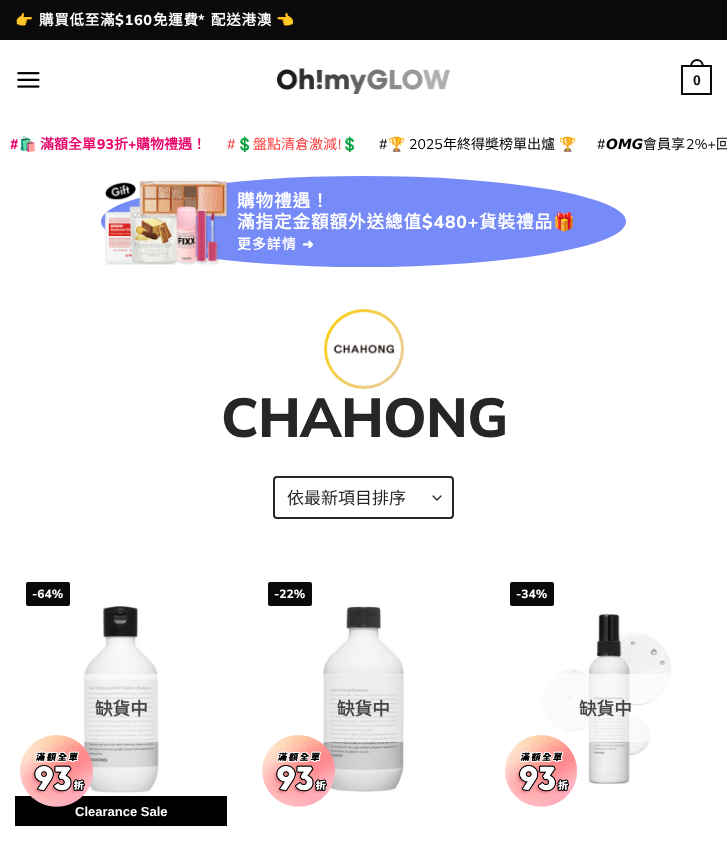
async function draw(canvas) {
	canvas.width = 727;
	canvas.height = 850;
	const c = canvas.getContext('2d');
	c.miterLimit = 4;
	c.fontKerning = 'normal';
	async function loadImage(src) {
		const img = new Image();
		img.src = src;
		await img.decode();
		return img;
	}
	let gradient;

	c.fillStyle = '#fff';
	c.fillRect(0, 0, 727, 850);
	c.fillStyle = '#0a0a0a';
	c.fillRect(0, 0, 727, 40);
	c.letterSpacing = '0.75px';
	c.font = 'bold 14.5px Noto Color Emoji';
	c.fillStyle = '#fff';
	c.fillText('👉', 15, 25);
	c.font = 'bold 14.5px Noto Sans CJK TC';
	c.fillText('購買低至滿', 39, 25);
	c.font = '800 14.5px Mulish';
	c.fillText('$160', 115, 25);
	c.font = 'bold 14.5px Noto Sans CJK TC';
	c.fillText('免運費', 153, 25);
	c.font = '800 14.5px Mulish';
	c.fillText('*', 198, 25);
	c.font = 'bold 14.5px Noto Sans CJK TC';
	c.fillText('配送港澳', 211, 25);
	c.font = 'bold 14.5px Noto Color Emoji';
	c.fillText('👈', 276, 25);
	c.drawImage(await loadImage('img1.png'), 17, 72, 23, 16);
	c.drawImage(await loadImage('img2.png'), 277, 68, 173, 26);
	c.strokeStyle = '#0a0a0a';
	c.lineWidth = 2;
	c.strokeRect(682, 66, 29, 28);
	c.fillStyle = '#0a0a0a';
	c.beginPath();
	c.moveTo(697, 59);
	c.bezierCurveTo(701.5, 59, 704, 63, 704, 67);
	c.lineTo(690, 67);
	c.bezierCurveTo(690, 63, 692.5, 59, 697, 59);
	c.closePath();
	c.moveTo(697, 61);
	c.bezierCurveTo(700.5, 61, 702, 64, 702, 67);
	c.lineTo(692, 67);
	c.bezierCurveTo(692, 64, 693.5, 61, 697, 61);
	c.closePath();
	c.fill('evenodd');
	c.letterSpacing = '0px';
	c.font = 'bold 14px Liberation Sans';
	c.fillText('0', 693, 85);
	c.font = '800 14px Mulish';
	c.fillStyle = '#e90268';
	c.fillText('#', 10, 149);
	c.font = 'bold 14px Noto Color Emoji';
	c.fillText('🛍️', 19, 149);
	c.font = 'bold 14px Noto Sans CJK TC';
	c.fillText('滿額全單', 40, 149);
	c.font = '800 14px Mulish';
	c.fillText('93', 97, 149);
	c.font = 'bold 14px Noto Sans CJK TC';
	c.fillText('折', 114, 149);
	c.font = '800 14px Mulish';
	c.fillText('+', 128, 149);
	c.font = 'bold 14px Noto Sans CJK TC';
	c.fillText('購物禮遇！', 136, 149);
	c.font = '14px Mulish';
	c.fillStyle = '#fa3d3d';
	c.fillText('#', 227, 149);
	c.font = '14px Noto Color Emoji';
	c.fillText('💲', 236, 149);
	c.font = '14px Noto Sans CJK TC';
	c.fillText('盤點清倉激減', 253, 149);
	c.font = '14px Mulish';
	c.fillText('!', 338, 149);
	c.font = '14px Noto Color Emoji';
	c.fillText('💲', 341, 149);
	c.font = '14px Mulish';
	c.fillStyle = '#000';
	c.fillText('#', 379, 149);
	c.font = '14px Noto Color Emoji';
	c.fillText('🏆', 388, 149);
	c.font = '14px Mulish';
	c.fillText('2025', 409, 149);
	c.font = '14px Noto Sans CJK TC';
	c.fillText('年終得奬榜單出爐', 443, 149);
	c.font = '14px Noto Color Emoji';
	c.fillText('🏆', 559, 149);
	c.font = '14px Mulish';
	c.fillText('#', 597, 149);
	c.font = 'italic bold 14px DejaVu Sans';
	c.fillText('𝙊𝙈𝙂', 606, 149);
	c.font = '14px Noto Sans CJK TC';
	c.fillText('會員享', 643, 149);
	c.font = '14px Mulish';
	c.fillText('2%+', 686, 149);
	c.font = '14px Noto Sans CJK TC';
	c.fillText('回', 716, 149);
	c.fillStyle = '#768bf7';
	c.beginPath();
	c.ellipse(363.5, 221.5, 262.5, 45.5, 0, 0, 2 * Math.PI);
	c.fill();
	c.drawImage(await loadImage('img3.png'), 104, 180, 125, 85);
	c.letterSpacing = '0.9px';
	c.font = 'bold 17.6px Noto Sans CJK TC';
	c.fillStyle = '#fff';
	c.fillText('購物禮遇！', 237, 207);
	c.fillText('滿指定金額額外送總值', 237, 228);
	c.font = '800 17.6px Mulish';
	c.fillText('$480+', 422, 228);
	c.font = 'bold 17.6px Noto Sans CJK TC';
	c.fillText('貨裝禮品', 479, 228);
	c.font = 'bold 17.6px Noto Color Emoji';
	c.fillText('🎁', 553, 228);
	c.font = 'bold 14px Noto Sans CJK TC';
	c.fillText('更多詳情', 237, 249);
	c.font = 'bold 14px DejaVu Sans';
	c.fillText('➜', 302, 249);
	gradient = c.createLinearGradient(456, 114, 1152, 584);
	gradient.addColorStop(0, '#ffce0b');
	gradient.addColorStop(0.2, '#dbcdfe');
	gradient.addColorStop(0.4, '#ff7da5');
	gradient.addColorStop(0.6, '#f67f62');
	gradient.addColorStop(0.8, '#4fc8e3');
	gradient.addColorStop(1, '#ffce0b');
	c.fillStyle = gradient;
	c.beginPath();
	c.arc(364, 349, 40, 0, 2 * Math.PI);
	c.fill();
	c.drawImage(await loadImage('img4.png'), 327, 312, 74, 74);
	c.letterSpacing = '-0.75px';
	c.font = '800 55px Mulish';
	c.fillStyle = '#252627';
	c.fillText('CHAHONG', 221, 437);
	c.beginPath();
	c.moveTo(433, 496);
	c.lineTo(437, 500);
	c.lineTo(441, 496);
	c.strokeStyle = '#252627';
	c.lineWidth = 1.3;
	c.lineCap = 'round';
	c.lineJoin = 'round';
	c.stroke();
	c.beginPath();
	c.roundRect(274, 477, 179, 41, 3);
	c.lineWidth = 2;
	c.lineJoin = 'miter';
	c.stroke();
	c.letterSpacing = '0px';
	c.font = '17px Noto Sans CJK TC';
	c.fillText('依最新項目排序', 287, 504);
	c.drawImage(await loadImage('img5.png'), 15, 572, 212, 224);
	c.fillStyle = '#0a0a0a';
	c.beginPath();
	c.roundRect(26, 582, 44, 24, 2);
	c.fill();
	c.font = '800 12px Mulish';
	c.fillStyle = '#fff';
	c.fillText('-64%', 32, 598);
	c.fillStyle = '#ffffffa1';
	c.fillRect(83, 674, 76, 68);
	c.font = 'bold 17.6px Noto Sans CJK TC';
	c.fillStyle = '#454545';
	c.fillText('缺貨中', 95, 715);
	c.fillStyle = '#000';
	c.fillRect(15, 796, 212, 30);
	c.font = 'bold 13px Liberation Sans';
	c.fillStyle = '#fff';
	c.fillText('Clearance Sale', 75, 816);
	c.drawImage(await loadImage('img6.png'), 20, 735, 73, 72);
	c.drawImage(await loadImage('img7.png'), 257, 572, 213, 254);
	c.fillStyle = '#0a0a0a';
	c.beginPath();
	c.roundRect(268, 582, 44, 24, 2);
	c.fill();
	c.font = '800 12px Mulish';
	c.fillStyle = '#fff';
	c.fillText('-22%', 274, 598);
	c.fillStyle = '#ffffffa1';
	c.fillRect(323, 674, 81, 68);
	c.drawImage(await loadImage('img8.png'), 262, 735, 73, 72);
	c.font = 'bold 17.6px Noto Sans CJK TC';
	c.fillStyle = '#454545';
	c.fillText('缺貨中', 337, 715);
	c.drawImage(await loadImage('img9.png'), 500, 572, 212, 254);
	c.fillStyle = '#0a0a0a';
	c.beginPath();
	c.roundRect(510, 582, 44, 24, 2);
	c.fill();
	c.font = '800 12px Mulish';
	c.fillStyle = '#fff';
	c.fillText('-34%', 516, 598);
	c.fillStyle = '#ffffffa1';
	c.fillRect(541, 674, 130, 68);
	c.drawImage(await loadImage('img10.png'), 505, 735, 72, 72);
	c.font = 'bold 17.6px Noto Sans CJK TC';
	c.fillStyle = '#454545';
	c.fillText('缺貨中', 579, 715);
}

draw(document.querySelector('canvas'));
